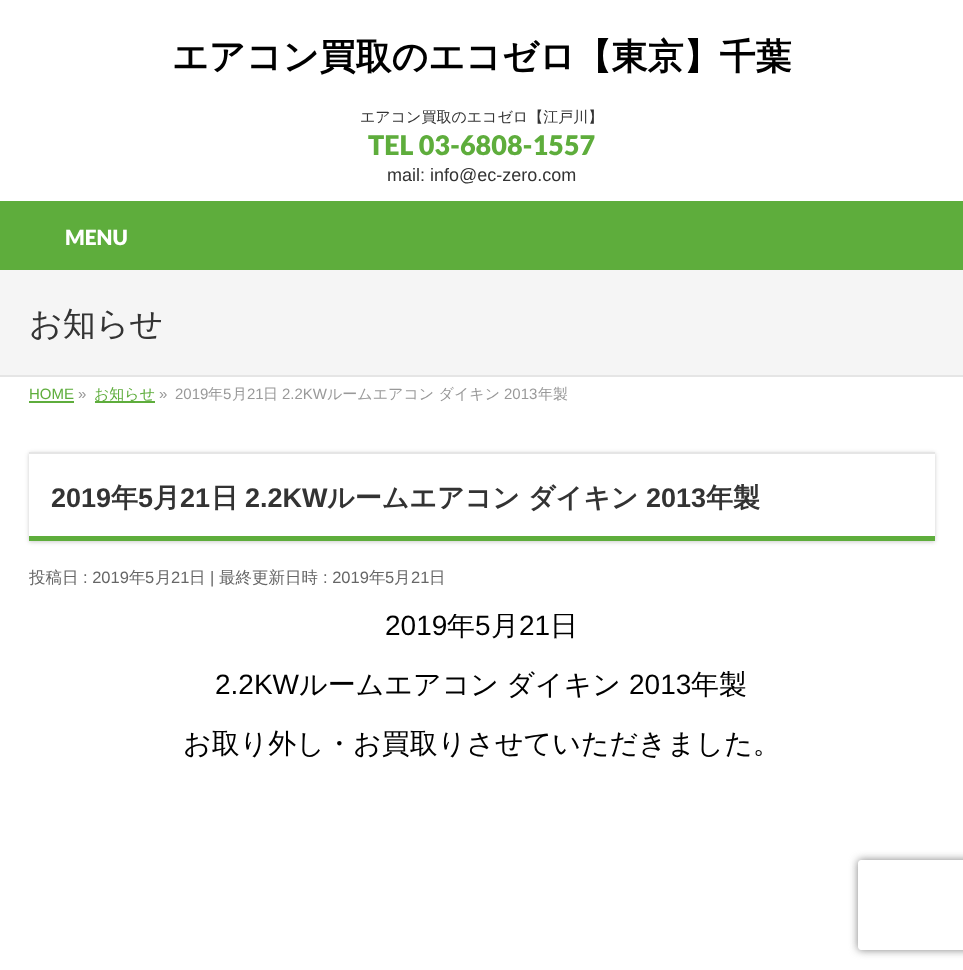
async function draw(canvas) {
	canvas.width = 963;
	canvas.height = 970;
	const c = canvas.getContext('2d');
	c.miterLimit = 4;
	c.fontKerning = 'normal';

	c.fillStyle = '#fff';
	c.fillRect(0, 0, 963, 970);
	c.font = 'bold 36px WenQuanYi Zen Hei';
	c.fillStyle = '#000';
	c.fillText('エアコン買取のエコゼロ【東京】千葉', 172, 69);
	c.font = '500 15px WenQuanYi Zen Hei';
	c.fillStyle = '#333';
	c.fillText('エアコン買取のエコゼロ【江戸川】', 360, 122);
	c.font = '900 27px Lato';
	c.fillStyle = '#5ead3c';
	c.fillText('TEL 03-6808-1557', 368, 155);
	c.font = '18px Liberation Sans';
	c.fillStyle = '#333';
	c.fillText('mail: info@ec-zero.com', 387, 181);
	c.fillStyle = '#5ead3c';
	c.fillRect(0, 201, 963, 69);
	c.font = '900 21px Lato';
	c.fillStyle = '#fff';
	c.fillText('MENU', 65, 245);
	c.fillStyle = '#f5f5f5';
	c.fillRect(0, 270, 963, 105);
	c.fillStyle = '#e5e5e5';
	c.fillRect(0, 375, 963, 2);
	c.font = '500 33px WenQuanYi Zen Hei';
	c.fillStyle = '#333';
	c.fillText('お知らせ', 29, 335);
	c.font = '15px Liberation Sans';
	c.fillStyle = '#5ead3c';
	c.fillText('HOME', 29, 399);
	c.fillRect(29, 401, 45, 2);
	c.fillStyle = '#999';
	c.fillText('»', 78, 399);
	c.fillStyle = '#5ead3c';
	c.fillRect(95, 401, 60, 2);
	c.font = '500 15px WenQuanYi Zen Hei';
	c.fillText('お知らせ', 94, 399);
	c.font = '15px Liberation Sans';
	c.fillStyle = '#999';
	c.fillText('»', 159, 399);
	c.fillText('2019', 175, 399);
	c.font = '500 15px WenQuanYi Zen Hei';
	c.fillText('年', 208, 399);
	c.font = '15px Liberation Sans';
	c.fillText('5', 223, 399);
	c.font = '500 15px WenQuanYi Zen Hei';
	c.fillText('月', 232, 399);
	c.font = '15px Liberation Sans';
	c.fillText('21', 247, 399);
	c.font = '500 15px WenQuanYi Zen Hei';
	c.fillText('日', 263, 399);
	c.font = '15px Liberation Sans';
	c.fillText('2.2KW', 282, 399);
	c.font = '500 15px WenQuanYi Zen Hei';
	c.fillText('ルームエアコン ダイキン', 327, 399);
	c.font = '15px Liberation Sans';
	c.fillText('2013', 504, 399);
	c.font = '500 15px WenQuanYi Zen Hei';
	c.fillText('年製', 538, 399);
	c.save();
	c.beginPath();
	c.moveTo(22, 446);
	c.lineTo(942, 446);
	c.lineTo(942, 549);
	c.lineTo(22, 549);
	c.closePath();
	c.moveTo(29, 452);
	c.lineTo(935, 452);
	c.lineTo(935, 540);
	c.lineTo(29, 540);
	c.closePath();
	c.clip('evenodd');
	c.fillStyle = '#00000033';
	c.filter = 'blur(2px)';
	c.beginPath();
	c.rect(29, 453, 906, 89);
	c.fill();
	c.filter = 'none';
	c.restore();
	c.fillStyle = '#e5e5e5';
	c.fillRect(29, 452, 906, 2);
	c.fillStyle = '#5ead3c';
	c.fillRect(29, 536, 906, 5);
	c.font = 'bold 27px Liberation Sans';
	c.fillStyle = '#333';
	c.fillText('2019', 51, 507);
	c.font = 'bold 27px WenQuanYi Zen Hei';
	c.fillText('年', 111, 507);
	c.font = 'bold 27px Liberation Sans';
	c.fillText('5', 138, 507);
	c.font = 'bold 27px WenQuanYi Zen Hei';
	c.fillText('月', 153, 507);
	c.font = 'bold 27px Liberation Sans';
	c.fillText('21', 180, 507);
	c.font = 'bold 27px WenQuanYi Zen Hei';
	c.fillText('日', 211, 507);
	c.font = 'bold 27px Liberation Sans';
	c.fillText('2.2KW', 245, 507);
	c.font = 'bold 27px WenQuanYi Zen Hei';
	c.fillText('ルームエアコン ダイキン', 327, 507);
	c.font = 'bold 27px Liberation Sans';
	c.fillText('2013', 646, 507);
	c.font = 'bold 27px WenQuanYi Zen Hei';
	c.fillText('年製', 706, 507);
	c.font = '500 16.5px WenQuanYi Zen Hei';
	c.fillStyle = '#666';
	c.fillText('投稿日', 29, 583);
	c.font = '16.5px Liberation Sans';
	c.fillText(': 2019', 83, 583);
	c.font = '500 16.5px WenQuanYi Zen Hei';
	c.fillText('年', 129, 583);
	c.font = '16.5px Liberation Sans';
	c.fillText('5', 145, 583);
	c.font = '500 16.5px WenQuanYi Zen Hei';
	c.fillText('月', 155, 583);
	c.font = '16.5px Liberation Sans';
	c.fillText('21', 171, 583);
	c.font = '500 16.5px WenQuanYi Zen Hei';
	c.fillText('日', 189, 583);
	c.font = '16.5px Liberation Sans';
	c.fillText('|', 210, 583);
	c.font = '500 16.5px WenQuanYi Zen Hei';
	c.fillText('最終更新日時', 219, 583);
	c.font = '16.5px Liberation Sans';
	c.fillText(': 2019', 323, 583);
	c.font = '500 16.5px WenQuanYi Zen Hei';
	c.fillText('年', 369, 583);
	c.font = '16.5px Liberation Sans';
	c.fillText('5', 385, 583);
	c.font = '500 16.5px WenQuanYi Zen Hei';
	c.fillText('月', 394, 583);
	c.font = '16.5px Liberation Sans';
	c.fillText('21', 411, 583);
	c.font = '500 16.5px WenQuanYi Zen Hei';
	c.fillText('日', 429, 583);
	c.font = '28px Liberation Sans';
	c.fillStyle = '#000';
	c.fillText('2019', 385, 635);
	c.save();
	c.beginPath();
	c.rect(29, 614, 906, 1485);
	c.clip();
	c.font = '500 28px WenQuanYi Zen Hei';
	c.fillText('年', 447, 635);
	c.restore();
	c.fillText('5', 475, 635);
	c.save();
	c.beginPath();
	c.rect(29, 614, 906, 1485);
	c.clip();
	c.font = '500 28px WenQuanYi Zen Hei';
	c.fillText('月', 491, 635);
	c.restore();
	c.fillText('21', 519, 635);
	c.save();
	c.beginPath();
	c.rect(29, 614, 906, 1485);
	c.clip();
	c.font = '500 28px WenQuanYi Zen Hei';
	c.fillText('日', 550, 635);
	c.restore();
	c.fillText('2.2KW', 215, 694);
	c.wordSpacing = '-1px';
	c.font = '500 28px WenQuanYi Zen Hei';
	c.fillText('ルームエアコン ダイキン', 299, 694);
	c.wordSpacing = '0px';
	c.font = '28px Liberation Sans';
	c.fillText('2013', 629, 694);
	c.font = '500 28px WenQuanYi Zen Hei';
	c.fillText('年製', 691, 694);
	c.fillText('お取り外し・お買取りさせていただきました。', 183, 753);
	c.save();
	c.beginPath();
	c.moveTo(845, 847);
	c.lineTo(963, 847);
	c.lineTo(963, 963);
	c.lineTo(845, 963);
	c.closePath();
	c.moveTo(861, 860);
	c.lineTo(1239, 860);
	c.bezierCurveTo(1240.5, 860, 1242, 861.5, 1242, 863);
	c.lineTo(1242, 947);
	c.bezierCurveTo(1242, 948.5, 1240.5, 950, 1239, 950);
	c.lineTo(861, 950);
	c.bezierCurveTo(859.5, 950, 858, 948.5, 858, 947);
	c.lineTo(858, 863);
	c.bezierCurveTo(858, 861.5, 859.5, 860, 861, 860);
	c.closePath();
	c.clip('evenodd');
	c.fillStyle = '#808080';
	c.filter = 'blur(4px)';
	c.beginPath();
	c.roundRect(858, 860, 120, 90, 3);
	c.fill();
	c.filter = 'none';
	c.restore();
}

draw(document.querySelector('canvas'));
